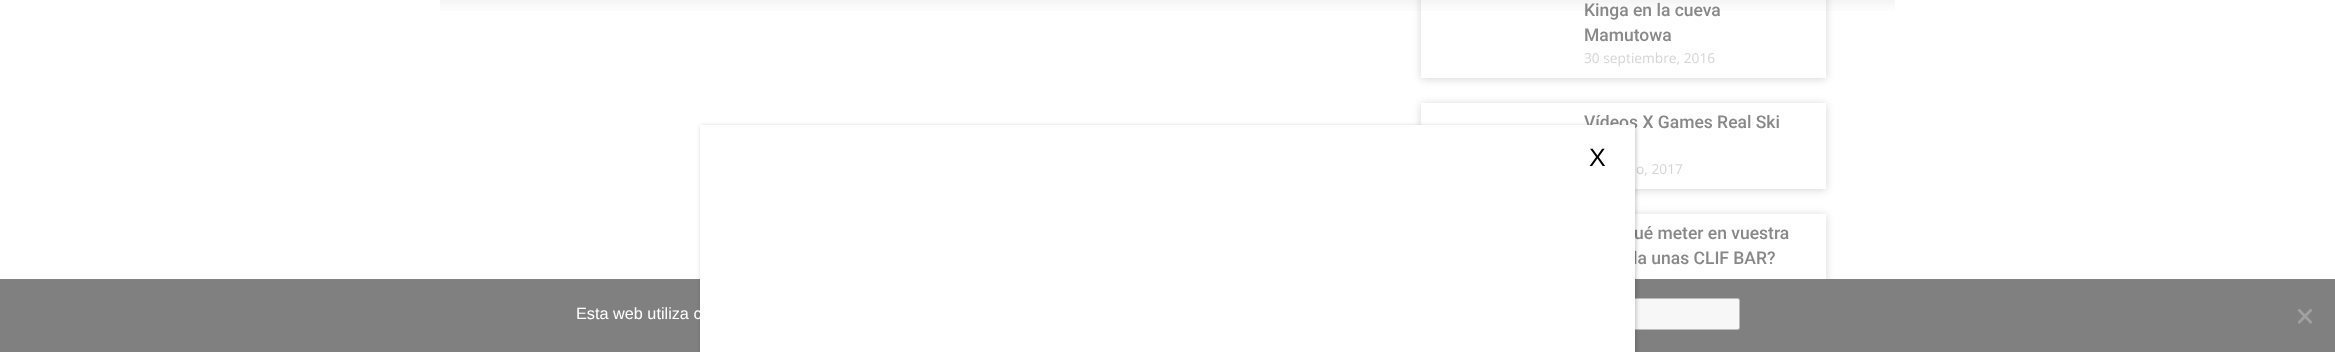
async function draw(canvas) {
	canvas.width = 2335;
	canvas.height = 352;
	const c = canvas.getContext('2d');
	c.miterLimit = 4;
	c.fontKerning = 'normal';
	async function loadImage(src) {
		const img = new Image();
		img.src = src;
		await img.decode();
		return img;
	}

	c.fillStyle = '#fff';
	c.fillRect(0, 0, 2335, 352);
	c.save();
	c.beginPath();
	c.moveTo(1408, 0);
	c.lineTo(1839, 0);
	c.lineTo(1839, 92);
	c.lineTo(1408, 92);
	c.closePath();
	c.moveTo(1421, -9);
	c.lineTo(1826, -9);
	c.lineTo(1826, 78);
	c.lineTo(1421, 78);
	c.closePath();
	c.clip('evenodd');
	c.fillStyle = '#d5d5d5';
	c.filter = 'blur(4px)';
	c.beginPath();
	c.rect(1421, -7, 405, 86);
	c.fill();
	c.filter = 'none';
	c.restore();
	c.font = '500 17.5px Roboto';
	c.fillStyle = '#888';
	c.fillText('Kinga en la cueva', 1584, 16);
	c.drawImage(await loadImage('img1.png'), 440, 0, 1455, 11);
	c.fillText('Mamutowa', 1584, 41);
	c.font = '13.75px Open Sans';
	c.fillStyle = '#d5d5d5';
	c.fillText('30 septiembre, 2016', 1584, 63);
	c.save();
	c.beginPath();
	c.moveTo(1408, 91);
	c.lineTo(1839, 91);
	c.lineTo(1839, 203);
	c.lineTo(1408, 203);
	c.closePath();
	c.moveTo(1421, 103);
	c.lineTo(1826, 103);
	c.lineTo(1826, 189);
	c.lineTo(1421, 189);
	c.closePath();
	c.clip('evenodd');
	c.filter = 'blur(4px)';
	c.beginPath();
	c.rect(1421, 104, 405, 86);
	c.fill();
	c.filter = 'none';
	c.restore();
	c.font = '500 17.5px Roboto';
	c.fillStyle = '#888';
	c.fillText('Vídeos X Games Real Ski', 1584, 128);
	c.font = '13.75px Open Sans';
	c.fillStyle = '#d5d5d5';
	c.fillText('o, 2017', 1636, 174);
	c.save();
	c.beginPath();
	c.moveTo(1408, 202);
	c.lineTo(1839, 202);
	c.lineTo(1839, 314);
	c.lineTo(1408, 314);
	c.closePath();
	c.moveTo(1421, 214);
	c.lineTo(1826, 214);
	c.lineTo(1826, 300);
	c.lineTo(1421, 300);
	c.closePath();
	c.clip('evenodd');
	c.filter = 'blur(4px)';
	c.beginPath();
	c.rect(1421, 215, 405, 86);
	c.fill();
	c.filter = 'none';
	c.restore();
	c.font = '500 17.5px Roboto';
	c.fillStyle = '#888';
	c.fillText('ué meter en vuestra', 1634, 239);
	c.fillText('la unas CLIF BAR?', 1633, 264);
	c.fillStyle = '#808080';
	c.fillRect(0, 279, 2335, 73);
	c.fillStyle = '#f7f7f7';
	c.beginPath();
	c.roundRect(1566.5, 298.5, 173, 31, 2);
	c.fill();
	c.strokeStyle = '#bbb';
	c.stroke();
	c.fillStyle = '#0202023b';
	c.filter = 'blur(2px)';
	c.beginPath();
	c.rect(701, 126, 935, 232);
	c.fill();
	c.filter = 'none';
	c.fillStyle = '#fff';
	c.fillRect(700, 125, 935, 227);
	c.font = '25px Liberation Sans';
	c.fillStyle = '#000';
	c.fillText('X', 1589, 166);
	c.font = '16.25px Liberation Sans';
	c.fillStyle = '#fff';
	c.fillText('Esta web utiliza c', 576, 319);
	c.fillStyle = '#a0a0a0';
	c.beginPath();
	c.moveTo(2310.5, 308.5);
	c.lineTo(2312.5, 310.5);
	c.lineTo(2299.5, 324);
	c.lineTo(2297.5, 322);
	c.closePath();
	c.fill();
	c.beginPath();
	c.moveTo(2297.5, 310.5);
	c.lineTo(2299.5, 308.5);
	c.lineTo(2312.5, 322);
	c.lineTo(2310.5, 324);
	c.closePath();
	c.fill();
}

draw(document.querySelector('canvas'));
